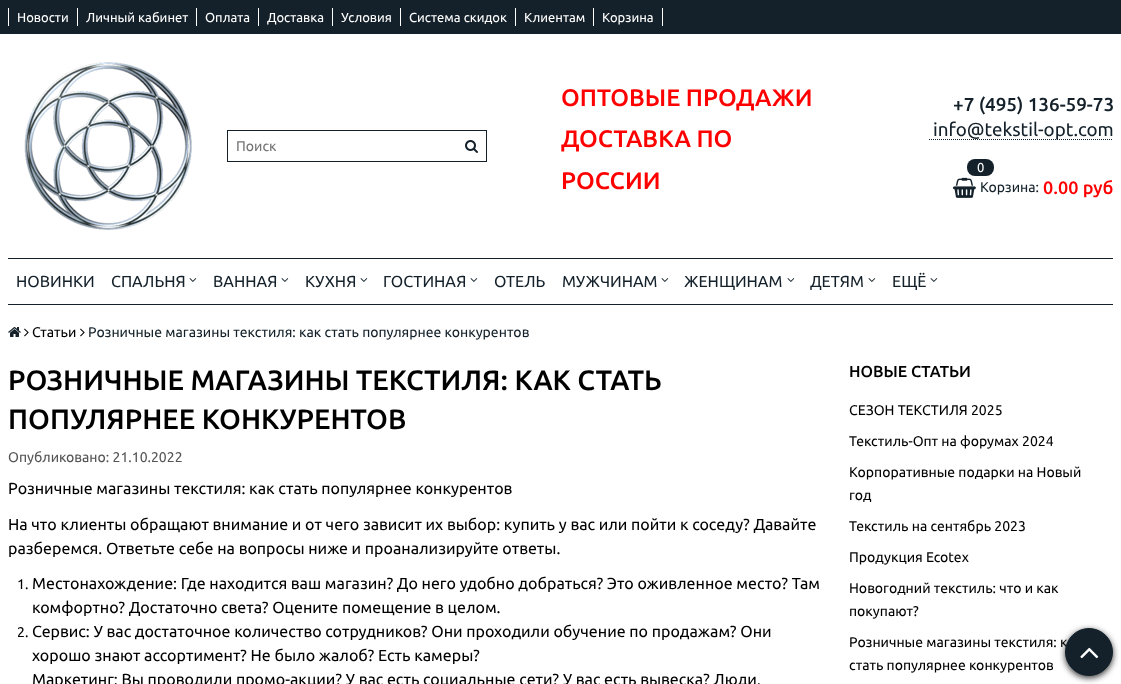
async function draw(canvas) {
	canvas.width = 1121;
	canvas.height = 684;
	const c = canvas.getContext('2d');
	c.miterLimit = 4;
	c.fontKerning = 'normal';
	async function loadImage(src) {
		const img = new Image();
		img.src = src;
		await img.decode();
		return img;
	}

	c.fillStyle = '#fff';
	c.fillRect(0, 0, 1121, 684);
	c.fillStyle = '#14212a';
	c.fillRect(0, 0, 1121, 34);
	c.fillStyle = '#fff';
	c.fillRect(8, 8, 1, 18);
	c.font = '13px Ubuntu';
	c.fillText('Новости', 17, 22);
	c.fillRect(77, 8, 1, 18);
	c.fillText('Личный кабинет', 86, 22);
	c.fillRect(196, 8, 1, 18);
	c.fillText('Оплата', 205, 22);
	c.fillRect(258, 8, 1, 18);
	c.fillText('Доставка', 267, 22);
	c.fillRect(332, 8, 1, 18);
	c.fillText('Условия', 341, 22);
	c.fillRect(400, 8, 1, 18);
	c.fillText('Система скидок', 409, 22);
	c.fillRect(515, 8, 1, 18);
	c.fillText('Клиентам', 524, 22);
	c.fillRect(662, 8, 1, 18);
	c.fillRect(593, 8, 1, 18);
	c.fillText('Корзина', 602, 22);
	c.drawImage(await loadImage('img1.png'), 24, 62, 168, 168);
	c.strokeStyle = '#14212a';
	c.strokeRect(227.5, 130.5, 259, 31);
	c.font = '14px Ubuntu';
	c.fillStyle = '#757575';
	c.fillText('Поиск', 236, 151);
	c.drawImage(await loadImage('img2.png'), 465, 140, 13, 13);
	c.font = '500 24px Ubuntu';
	c.fillStyle = '#f00';
	for (const [text, x, y] of [
		['ОПТОВЫЕ ПРОДАЖИ', 561, 106],
		['ДОСТАВКА ПО', 561, 147],
		['РОССИИ', 561, 189],
	]) {
		c.fillText(text, x, y);
	}
	c.font = '500 18.75px Ubuntu';
	c.fillStyle = '#14212a';
	c.fillText('+7 (495) 136-59-73', 953, 111);
	c.beginPath();
	c.moveTo(929, 139.5);
	c.lineTo(1113, 139.5);
	c.setLineDash([1, 1]);
	c.stroke();
	c.font = '18.75px Ubuntu';
	c.fillText('info@tekstil-opt.com', 933, 136);
	c.beginPath();
	c.roundRect(967, 159, 27, 17, 8);
	c.fill();
	c.font = '13px Ubuntu';
	c.fillStyle = '#fff';
	c.fillText('0', 977, 172);
	c.drawImage(await loadImage('img3.png'), 953, 177, 23, 21);
	c.font = '14px Ubuntu';
	c.fillStyle = '#14212a';
	c.fillText('Корзина:', 980, 192);
	c.font = '500 18px Ubuntu';
	c.fillStyle = '#f00';
	c.fillText('0.00 руб', 1043, 194);
	c.fillStyle = '#14212a';
	c.fillRect(8, 258, 1105, 1);
	c.fillRect(8, 304, 1105, 1);
	c.font = '16px Ubuntu';
	c.fillText('НОВИНКИ', 16, 287);
	c.fillText('СПАЛЬНЯ', 111, 287);
	c.drawImage(await loadImage('img4.png'), 189, 278, 8, 4);
	c.fillText('ВАННАЯ', 213, 287);
	c.drawImage(await loadImage('img4.png'), 281, 278, 8, 4);
	c.fillText('КУХНЯ', 305, 287);
	c.drawImage(await loadImage('img4.png'), 360, 278, 8, 4);
	c.fillText('ГОСТИНАЯ', 383, 287);
	c.drawImage(await loadImage('img4.png'), 470, 278, 8, 4);
	c.fillText('ОТЕЛЬ', 494, 287);
	c.fillText('МУЖЧИНАМ', 562, 287);
	c.drawImage(await loadImage('img4.png'), 661, 278, 8, 4);
	c.fillText('ЖЕНЩИНАМ', 684, 287);
	c.drawImage(await loadImage('img4.png'), 787, 278, 8, 4);
	c.fillText('ДЕТЯМ', 810, 287);
	c.drawImage(await loadImage('img4.png'), 868, 278, 8, 4);
	c.fillText('ЕЩЁ', 892, 287);
	c.drawImage(await loadImage('img4.png'), 930, 278, 8, 4);
	c.drawImage(await loadImage('img5.png'), 8, 327, 13, 10);
	c.drawImage(await loadImage('img6.png'), 24, 328, 5, 9);
	c.font = '14px Ubuntu';
	c.fillStyle = '#000';
	c.fillText('Статьи', 32, 337);
	c.drawImage(await loadImage('img6.png'), 80, 328, 5, 9);
	c.fillStyle = '#14212a';
	c.fillText('Розничные магазины текстиля: как стать популярнее конкурентов', 88, 337);
	c.font = '500 28px Ubuntu';
	c.fillStyle = '#000';
	c.fillText('РОЗНИЧНЫЕ МАГАЗИНЫ ТЕКСТИЛЯ: КАК СТАТЬ', 8, 390);
	c.fillText('ПОПУЛЯРНЕЕ КОНКУРЕНТОВ', 8, 429);
	c.font = '14px Ubuntu';
	c.fillStyle = '#555';
	c.fillText('Опубликовано: 21.10.2022', 8, 462);
	c.font = '16px Ubuntu';
	c.fillStyle = '#000';
	for (const [text, x, y] of [
		['Розничные магазины текстиля: как стать популярнее конкурентов', 8, 494],
		['На что клиенты обращают внимание и от чего зависит их выбор: купить у вас или пойти к соседу? Давайте', 8, 530],
		['разберемся. Ответьте себе на вопросы ниже и проанализируйте ответы.', 8, 554],
	]) {
		c.fillText(text, x, y);
	}
	c.font = '14px Ubuntu';
	c.fillText('1.', 17, 589);
	c.font = '16px Ubuntu';
	c.fillText('Местонахождение: Где находится ваш магазин? До него удобно добраться? Это оживленное место? Там', 32, 589);
	c.fillText('комфортно? Достаточно света? Оцените помещение в целом.', 32, 613);
	c.font = '14px Ubuntu';
	c.fillText('2.', 17, 637);
	c.font = '16px Ubuntu';
	for (const [text, x, y] of [
		['Сервис: У вас достаточное количество сотрудников? Они проходили обучение по продажам? Они', 32, 637],
		['хорошо знают ассортимент? Не было жалоб? Есть камеры?', 32, 661],
		['Маркетинг: Вы проводили промо-акции? У вас есть социальные сети? У вас есть вывеска? Люди,', 32, 685],
	]) {
		c.fillText(text, x, y);
	}
	c.font = '500 16px Ubuntu';
	c.fillText('НОВЫЕ СТАТЬИ', 849, 377);
	c.font = '14px Ubuntu';
	for (const [text, x, y] of [
		['СЕЗОН ТЕКСТИЛЯ 2025', 849, 415],
		['Текстиль-Опт на форумах 2024', 849, 446],
		['Корпоративные подарки на Новый', 849, 477],
		['год', 849, 500],
		['Текстиль на сентябрь 2023', 849, 531],
		['Продукция Ecotex', 849, 562],
		['Новогодний текстиль: что и как', 849, 593],
		['покупают?', 849, 616],
		['Розничные магазины текстиля: к', 849, 647],
		['стать популярнее конкурентов', 849, 670],
	]) {
		c.fillText(text, x, y);
	}
	c.fillStyle = '#333';
	c.filter = 'blur(3px)';
	c.beginPath();
	c.roundRect(1065, 630, 48, 48, 24);
	c.fill();
	c.filter = 'none';
	c.fillStyle = '#14212a';
	c.beginPath();
	c.arc(1089, 652, 23.5, 0, 2 * Math.PI);
	c.fill();
	c.setLineDash([]);
	c.stroke();
	c.drawImage(await loadImage('img7.png'), 1080, 647, 19, 12);
}

draw(document.querySelector('canvas'));
